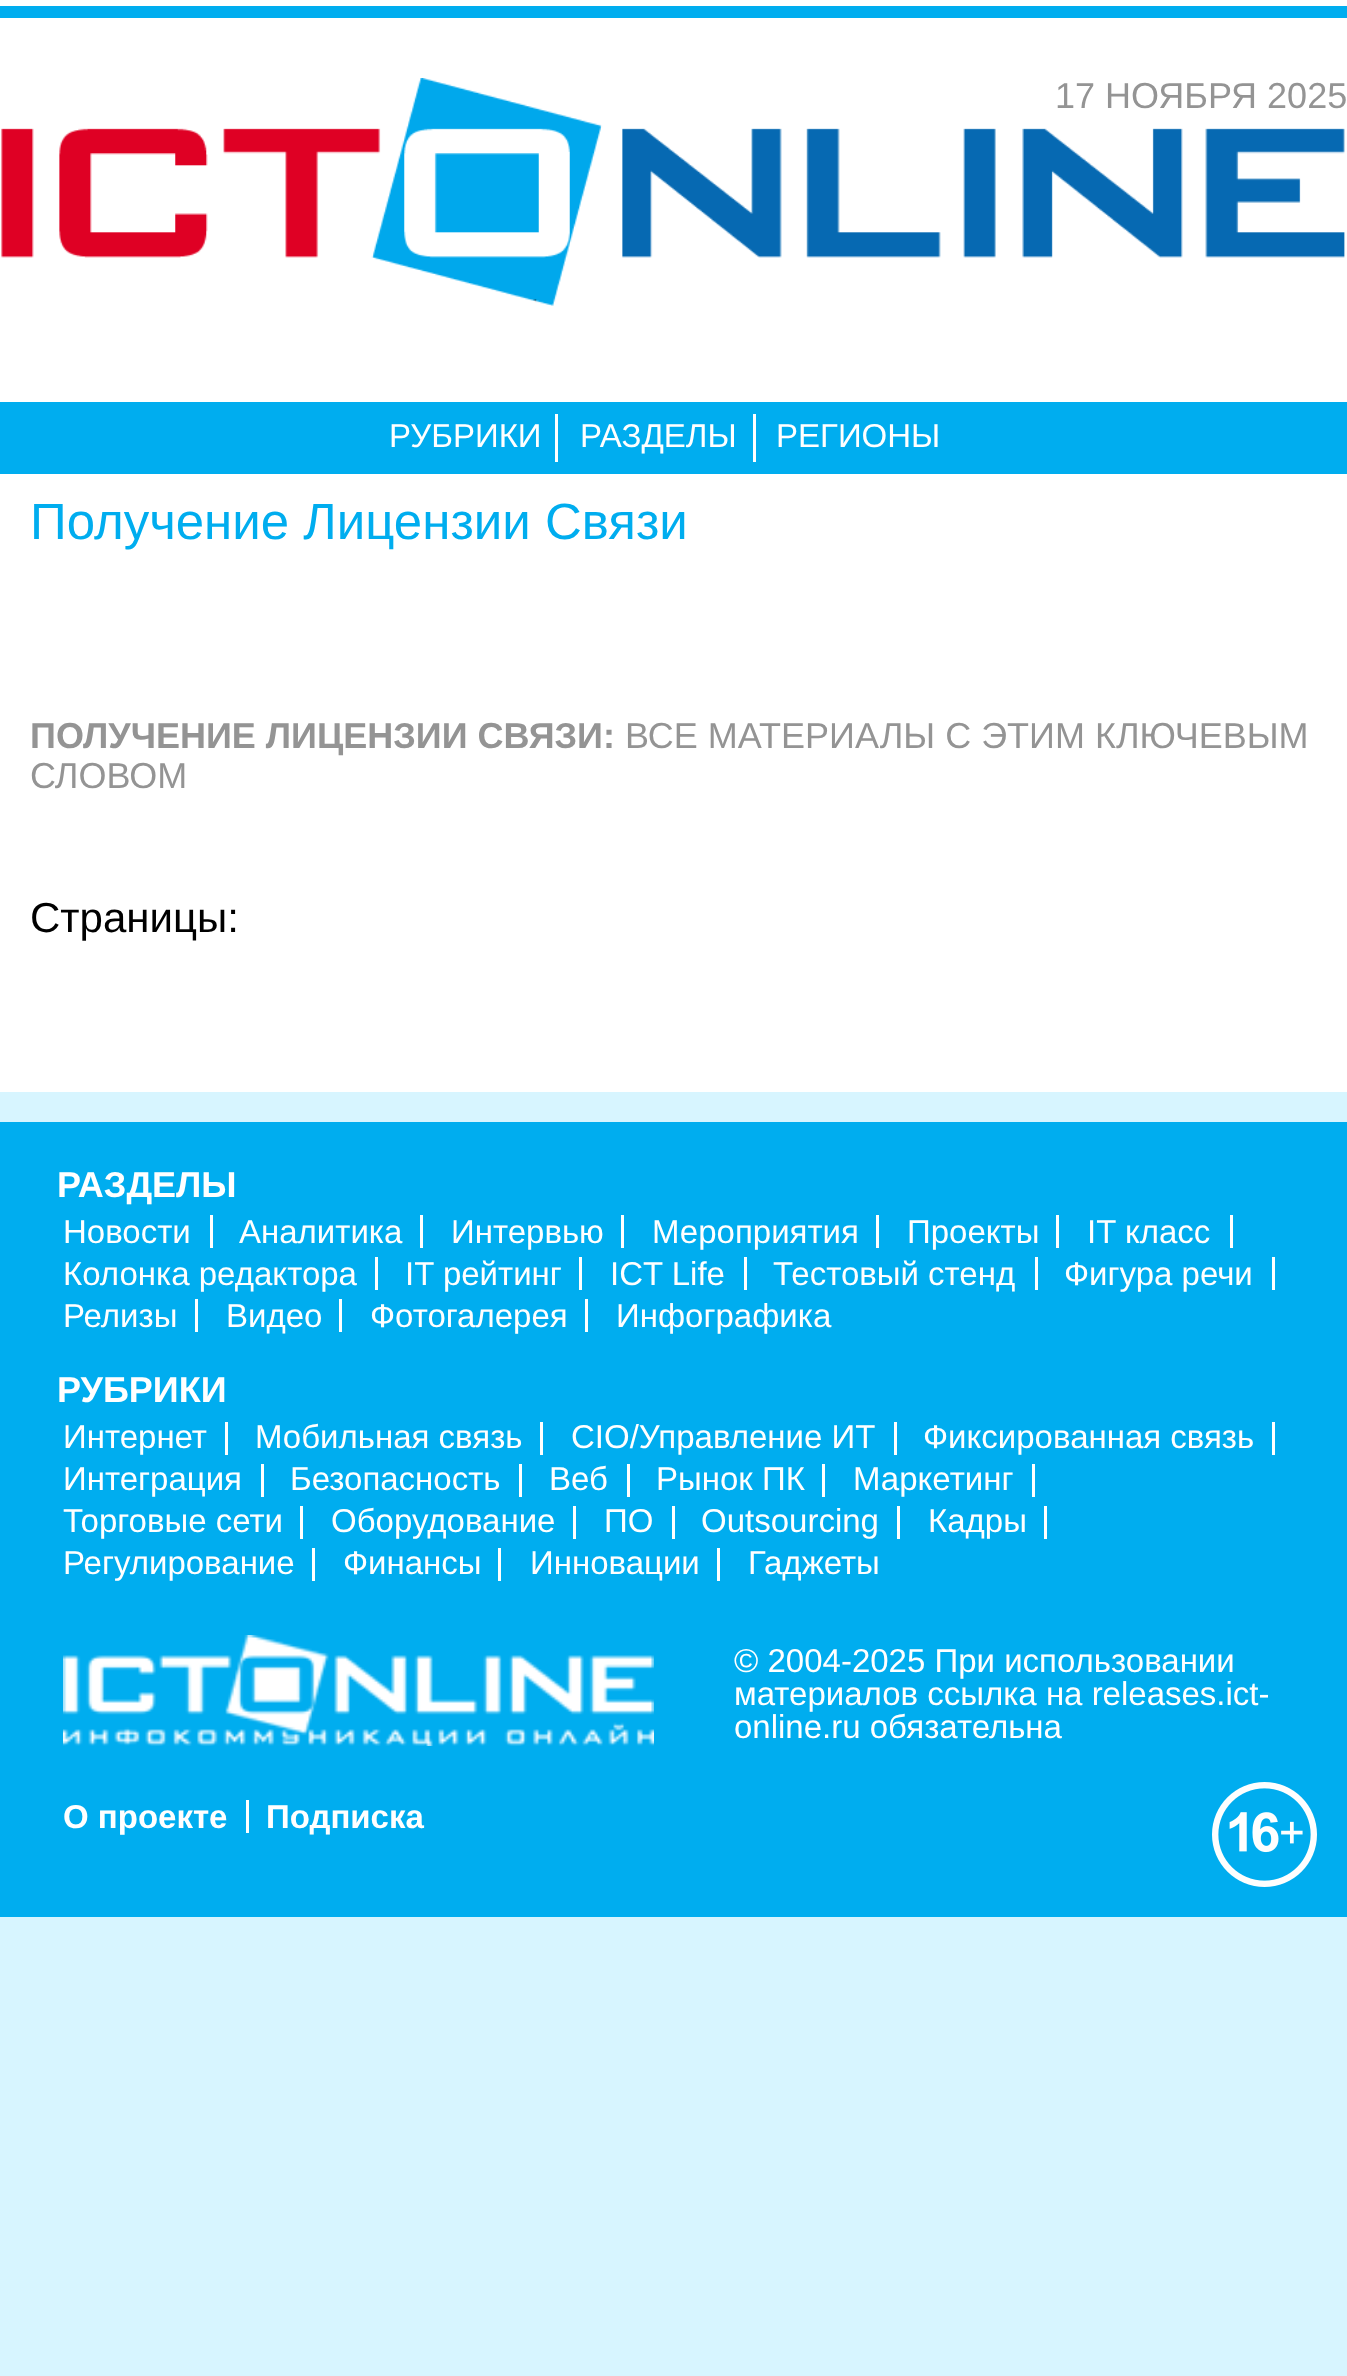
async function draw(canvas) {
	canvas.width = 1347;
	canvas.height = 2376;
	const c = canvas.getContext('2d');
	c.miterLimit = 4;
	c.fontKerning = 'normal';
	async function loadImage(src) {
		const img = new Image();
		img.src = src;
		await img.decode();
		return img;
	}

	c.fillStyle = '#d7f5ff';
	c.fillRect(0, 0, 1347, 2376);
	for (const [x, y, w, h, color] of [
		[0, 0, 1347, 6, '#fff'],
		[0, 18, 1347, 384, '#fff'],
		[0, 6, 1347, 12, '#00adef'],
	]) {
		c.fillStyle = color;
		c.fillRect(x, y, w, h);
	}
	c.drawImage(await loadImage('img1.png'), 1, 78, 1344, 228);
	c.font = '36px Liberation Sans';
	c.fillStyle = '#949494';
	c.fillText('17 НОЯБРЯ 2025', 1055, 108);
	c.fillStyle = '#00adef';
	c.fillRect(0, 402, 1347, 72);
	c.fillStyle = '#fff';
	c.fillRect(555, 414, 3, 48);
	c.font = '33px Liberation Sans';
	c.fillText('РУБРИКИ', 389, 447);
	c.fillRect(753, 414, 3, 48);
	c.fillText('РАЗДЕЛЫ', 580, 447);
	c.fillText('РЕГИОНЫ', 776, 447);
	c.fillRect(0, 474, 1347, 618);
	c.font = '51px Liberation Sans';
	c.fillStyle = '#00adef';
	c.fillText('Получение Лицензии Связи', 30, 539);
	c.font = 'bold 36px Liberation Sans';
	c.fillStyle = '#949494';
	c.fillText('ПОЛУЧЕНИЕ ЛИЦЕНЗИИ СВЯЗИ:', 30, 748);
	c.font = '36px Liberation Sans';
	c.fillText('ВСЕ МАТЕРИАЛЫ С ЭТИМ КЛЮЧЕВЫМ', 625, 748);
	c.fillText('СЛОВОМ', 30, 788);
	c.font = '42px Liberation Sans';
	c.fillStyle = '#000';
	c.fillText('Страницы:', 30, 932);
	c.fillStyle = '#00adef';
	c.fillRect(0, 1122, 1347, 795);
	c.font = 'bold 36px Liberation Sans';
	c.fillStyle = '#fff';
	c.fillText('РАЗДЕЛЫ', 57, 1197);
	c.fillRect(210, 1215, 3, 33);
	c.font = '33px Liberation Sans';
	c.fillText('Новости', 63, 1243);
	c.fillRect(420, 1215, 3, 33);
	c.fillText('Аналитика', 239, 1243);
	c.fillRect(621, 1215, 3, 33);
	c.fillText('Интервью', 451, 1243);
	c.fillRect(876, 1215, 3, 33);
	c.fillText('Мероприятия', 652, 1243);
	c.fillRect(1056, 1215, 3, 33);
	c.fillText('Проекты', 907, 1243);
	c.fillRect(1230, 1215, 3, 33);
	c.fillText('IT класс', 1087, 1243);
	c.fillRect(375, 1257, 3, 33);
	c.fillText('Колонка редактора', 63, 1285);
	c.fillRect(579, 1257, 3, 33);
	c.fillText('IT рейтинг', 405, 1285);
	c.fillRect(744, 1257, 3, 33);
	c.fillText('ICT Life', 610, 1285);
	c.fillRect(1035, 1257, 3, 33);
	c.fillText('Тестовый стенд', 773, 1285);
	c.fillRect(1272, 1257, 3, 33);
	c.fillText('Фигура речи', 1064, 1285);
	c.fillRect(195, 1299, 3, 33);
	c.fillText('Релизы', 63, 1327);
	c.fillRect(339, 1299, 3, 33);
	c.fillText('Видео', 226, 1327);
	c.fillRect(585, 1299, 3, 33);
	c.fillText('Фотогалерея', 370, 1327);
	c.fillText('Инфографика', 616, 1327);
	c.font = 'bold 36px Liberation Sans';
	c.fillText('РУБРИКИ', 57, 1402);
	c.fillRect(225, 1422, 3, 33);
	c.font = '33px Liberation Sans';
	c.fillText('Интернет', 63, 1448);
	c.fillRect(540, 1422, 3, 33);
	c.fillText('Мобильная связь', 255, 1448);
	c.fillRect(894, 1422, 3, 33);
	c.fillText('CIO/Управление ИТ', 571, 1448);
	c.fillRect(1272, 1422, 3, 33);
	c.fillText('Фиксированная связь', 923, 1448);
	c.fillRect(261, 1464, 3, 33);
	c.fillText('Интеграция', 63, 1490);
	c.fillRect(519, 1464, 3, 33);
	c.fillText('Безопасность', 290, 1490);
	c.fillRect(627, 1464, 3, 33);
	c.fillText('Веб', 549, 1490);
	c.fillRect(822, 1464, 3, 33);
	c.fillText('Рынок ПК', 656, 1490);
	c.fillRect(1032, 1464, 3, 33);
	c.fillText('Маркетинг', 853, 1490);
	c.fillRect(300, 1506, 3, 33);
	c.fillText('Торговые сети', 63, 1532);
	c.fillRect(573, 1506, 3, 33);
	c.fillText('Оборудование', 331, 1532);
	c.fillRect(672, 1506, 3, 33);
	c.fillText('ПО', 604, 1532);
	c.fillRect(897, 1506, 3, 33);
	c.fillText('Outsourcing', 701, 1532);
	c.fillRect(1044, 1506, 3, 33);
	c.fillText('Кадры', 928, 1532);
	c.fillRect(312, 1548, 3, 33);
	c.fillText('Регулирование', 63, 1574);
	c.fillRect(498, 1548, 3, 33);
	c.fillText('Финансы', 343, 1574);
	c.fillRect(717, 1548, 3, 33);
	c.fillText('Инновации', 530, 1574);
	c.fillText('Гаджеты', 748, 1574);
	c.drawImage(await loadImage('img2.png'), 63, 1635, 591, 111);
	for (const [text, x, y] of [
		['© 2004-2025 При использовании', 734, 1672],
		['материалов ссылка на releases.ict-', 734, 1705],
		['online.ru обязательна', 734, 1738],
	]) {
		c.fillText(text, x, y);
	}
	c.fillRect(246, 1800, 3, 33);
	c.font = 'bold 33px Liberation Sans';
	c.fillText('О проекте', 63, 1828);
	c.fillText('Подписка', 266, 1828);
	c.drawImage(await loadImage('img3.png'), 1212, 1782, 105, 105);
}

draw(document.querySelector('canvas'));
